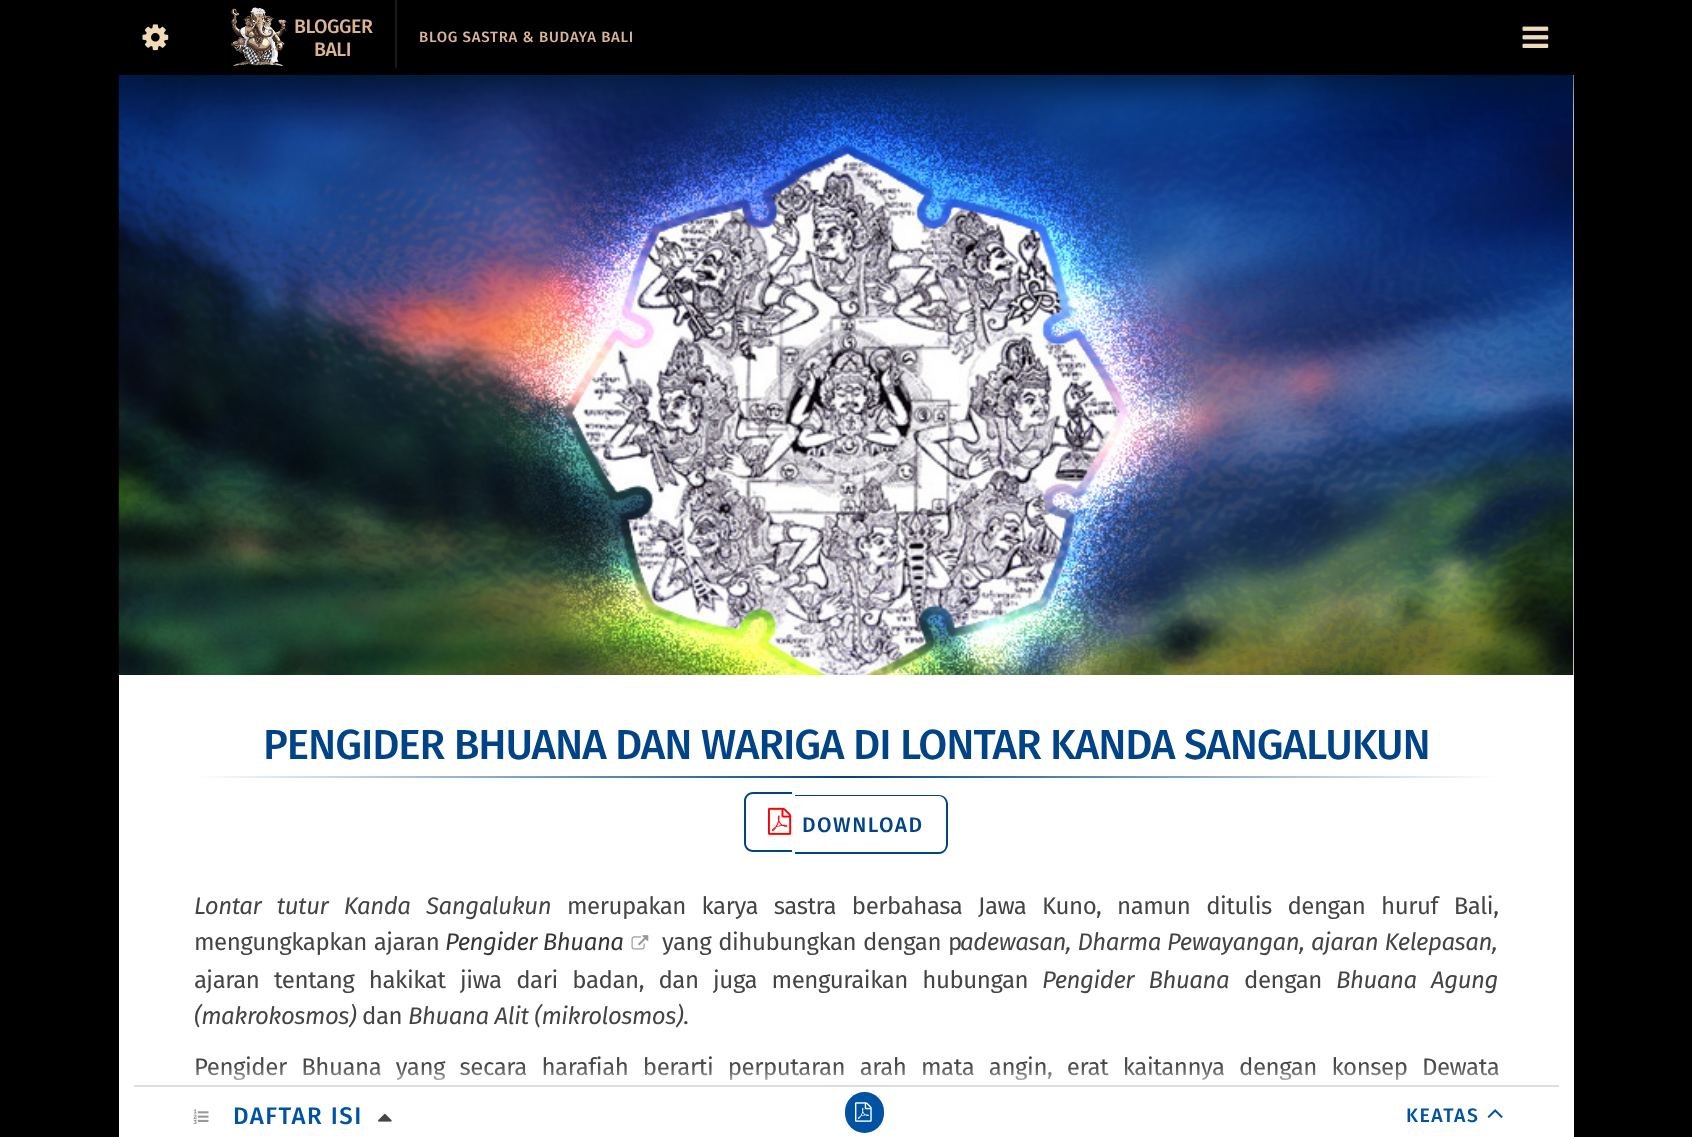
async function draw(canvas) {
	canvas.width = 1692;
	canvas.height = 1137;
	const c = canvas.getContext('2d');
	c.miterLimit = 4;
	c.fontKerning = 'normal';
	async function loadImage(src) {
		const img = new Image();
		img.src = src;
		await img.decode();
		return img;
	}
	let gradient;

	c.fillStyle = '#000';
	c.fillRect(0, 0, 1692, 1137);
	c.fillStyle = '#fff';
	c.fillRect(119, 75, 1455, 1062);
	c.drawImage(await loadImage('img4.png'), 118, 75, 1456, 600);
	c.save();
	c.beginPath();
	c.rect(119, 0, 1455, 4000);
	c.clip();
	c.fillStyle = '#001530';
	c.filter = 'blur(22.5px)';
	c.beginPath();
	c.rect(125, 11, 1455, 75);
	c.fill();
	c.filter = 'none';
	c.restore();
	c.fillStyle = '#000';
	c.fillRect(119, 0, 1455, 75);
	c.drawImage(await loadImage('img1.png'), 142, 24, 27, 27);
	c.fillStyle = '#1a1a1a';
	c.fillRect(395, 0, 2, 68);
	c.drawImage(await loadImage('img2.png'), 231, 7, 56, 59);
	c.letterSpacing = '-0.45px';
	c.font = '500 19.5px Fira Sans';
	c.fillStyle = '#dab496';
	c.fillText('BLOGGER', 294, 33);
	c.fillText('BALI', 314, 56);
	c.letterSpacing = '0.75px';
	c.font = '500 15px Fira Sans';
	c.fillText('BLOG SASTRA & BUDAYA BALI', 419, 42);
	c.drawImage(await loadImage('img3.png'), 1522, 26, 27, 22);
	c.letterSpacing = '-1.05px';
	c.font = '500 42px Fira Sans';
	c.fillStyle = '#004386';
	c.fillText('PENGIDER BHUANA DAN WARIGA DI LONTAR KANDA SANGALUKUN', 263, 759);
	gradient = c.createLinearGradient(194, 776, 1499, 776);
	gradient.addColorStop(0, '#fff');
	gradient.addColorStop(0.5, '#004386');
	gradient.addColorStop(1, '#fff');
	c.fillStyle = gradient;
	c.fillRect(194, 776, 1305, 2);
	c.fillStyle = '#004386';
	c.beginPath();
	c.moveTo(753, 792);
	c.lineTo(792, 792);
	c.lineTo(792, 852);
	c.lineTo(753, 852);
	c.bezierCurveTo(748, 852, 744, 848, 744, 843);
	c.lineTo(744, 801);
	c.bezierCurveTo(744, 796, 748, 792, 753, 792);
	c.closePath();
	c.moveTo(753, 794);
	c.lineTo(792, 794);
	c.lineTo(792, 850);
	c.lineTo(753, 850);
	c.bezierCurveTo(749, 850, 746, 847, 746, 843);
	c.lineTo(746, 801);
	c.bezierCurveTo(746, 797, 749, 794, 753, 794);
	c.closePath();
	c.fill('evenodd');
	c.beginPath();
	c.moveTo(795, 795);
	c.lineTo(939, 795);
	c.bezierCurveTo(944, 795, 948, 799, 948, 804);
	c.lineTo(948, 844);
	c.bezierCurveTo(948, 849, 944, 854, 939, 854);
	c.lineTo(795, 854);
	c.closePath();
	c.moveTo(795, 796);
	c.lineTo(939, 796);
	c.bezierCurveTo(943, 796, 946, 800, 946, 804);
	c.lineTo(946, 844);
	c.bezierCurveTo(946, 849, 943, 852, 939, 852);
	c.lineTo(795, 852);
	c.closePath();
	c.fill('evenodd');
	c.drawImage(await loadImage('img5.png'), 768, 807, 24, 28);
	c.letterSpacing = '1.5px';
	c.font = '500 21px Fira Sans';
	c.fillText('DOWNLOAD', 802, 832);
	c.letterSpacing = '-0.45px';
	c.wordSpacing = '9.75px';
	c.font = 'italic 24px Fira Sans';
	c.fillStyle = '#444';
	c.fillText('Lontar tutur Kanda Sangalukun', 194, 914);
	c.font = '24px Fira Sans';
	c.fillText('merupakan karya sastra berbahasa Jawa Kuno, namun ditulis dengan huruf Bali,', 567, 914);
	c.wordSpacing = '1px';
	c.fillText('mengungkapkan ajaran', 194, 950);
	c.wordSpacing = '0px';
	c.font = 'italic 24px Fira Sans';
	c.fillStyle = '#363636';
	c.fillText('Pengider Bhuana', 445, 950);
	c.drawImage(await loadImage('img6.png'), 631, 935, 18, 15);
	c.wordSpacing = '1px';
	c.font = '24px Fira Sans';
	c.fillStyle = '#444';
	c.fillText('yang dihubungkan dengan p', 662, 950);
	c.wordSpacing = '0.5px';
	c.font = 'italic 24px Fira Sans';
	c.fillText('adewasan, Dharma Pewayangan, ajaran Kelepasan,', 960, 950);
	c.wordSpacing = '8.6px';
	c.font = '24px Fira Sans';
	c.fillText('ajaran tentang hakikat jiwa dari badan, dan juga menguraikan hubungan', 194, 988);
	c.font = 'italic 24px Fira Sans';
	c.fillText('Pengider Bhuana', 1042, 988);
	c.wordSpacing = '0px';
	c.font = '24px Fira Sans';
	c.fillText('dengan', 1244, 988);
	c.wordSpacing = '8.6px';
	c.font = 'italic 24px Fira Sans';
	c.fillText('Bhuana Agung', 1336, 988);
	c.wordSpacing = '0px';
	c.fillText('(makrokosmos)', 194, 1024);
	c.font = '24px Fira Sans';
	c.fillText('dan', 362, 1024);
	c.font = 'italic 24px Fira Sans';
	c.fillText('Bhuana Alit (mikrolosmos)', 408, 1024);
	c.font = '24px Fira Sans';
	c.fillText('.', 683, 1024);
	c.wordSpacing = '8.6px';
	c.fillText('Pengider Bhuana yang secara harafiah berarti perputaran arah mata angin, erat kaitannya dengan konsep Dewata', 194, 1075);
	c.fillStyle = '#ffffff99';
	c.filter = 'blur(6px)';
	c.beginPath();
	c.rect(134, 1074, 1425, 53);
	c.fill();
	c.filter = 'none';
	c.fillStyle = '#ddd';
	c.fillRect(134, 1085, 1425, 2);
	c.drawImage(await loadImage('img7.png'), 193, 1109, 16, 16);
	c.letterSpacing = '1.5px';
	c.wordSpacing = '0px';
	c.font = '500 24px Fira Sans';
	c.fillStyle = '#0052a3';
	c.fillText('DAFTAR ISI', 233, 1124);
	c.drawImage(await loadImage('img8.png'), 378, 1113, 14, 9);
	c.beginPath();
	c.roundRect(845, 1092, 39, 41, 19.5);
	c.fill();
	c.drawImage(await loadImage('img9.png'), 855, 1102, 17, 20);
	c.font = '500 19.5px Fira Sans';
	c.fillText('KEATAS', 1406, 1122);
	c.drawImage(await loadImage('img10.png'), 1487, 1109, 16, 9);
}

draw(document.querySelector('canvas'));
